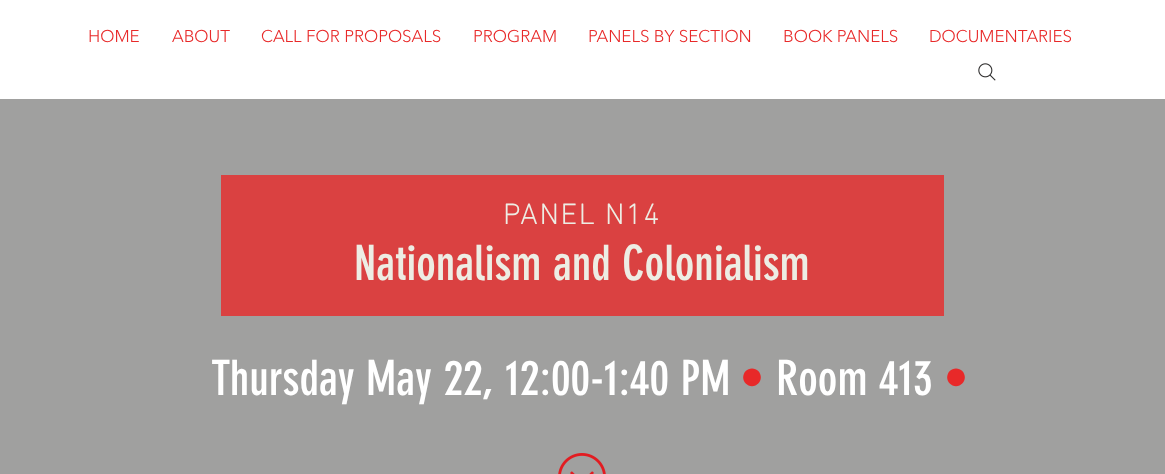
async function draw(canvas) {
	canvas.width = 1165;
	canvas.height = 474;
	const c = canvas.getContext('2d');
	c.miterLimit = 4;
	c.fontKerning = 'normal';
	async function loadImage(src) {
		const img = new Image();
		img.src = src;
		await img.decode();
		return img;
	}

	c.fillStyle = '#fff';
	c.fillRect(0, 0, 1165, 474);
	c.font = '300 17px "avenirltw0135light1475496"';
	c.fillStyle = '#e82929';
	for (const [text, x, y] of [
		['HOME', 88, 42],
		['ABOUT', 172, 42],
		['CALL FOR PROPOSALS', 261, 42],
		['PROGRAM', 473, 42],
		['PANELS BY SECTION', 588, 42],
		['BOOK PANELS', 783, 42],
		['DOCUMENTARIES', 929, 42],
	]) {
		c.fillText(text, x, y);
	}
	c.drawImage(await loadImage('img1.png'), 978, 63, 18, 18);
	c.fillStyle = '#a0a09f';
	c.fillRect(0, 99, 1165, 375);
	c.fillStyle = '#da4141';
	c.fillRect(221, 175, 723, 141);
	c.letterSpacing = '1.5px';
	c.font = '300 30px "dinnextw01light"';
	c.fillStyle = '#edede4';
	c.fillText('PANEL N14', 503, 224);
	c.letterSpacing = '0px';
	c.font = '48px "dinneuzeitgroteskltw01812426"';
	c.fillText('Nationalism and Colonialism', 354, 280);
	c.fillStyle = '#fff';
	c.fillText('Thursday May 22, 12:00-1:40 PM', 211, 395);
	c.fillStyle = '#e82929';
	c.fillText('•', 740, 395);
	c.fillStyle = '#fff';
	c.fillText('Room 413', 776, 395);
	c.fillStyle = '#e82929';
	c.fillText('•', 944, 395);
	c.drawImage(await loadImage('img2.png'), 558, 453, 48, 21);
}

draw(document.querySelector('canvas'));
